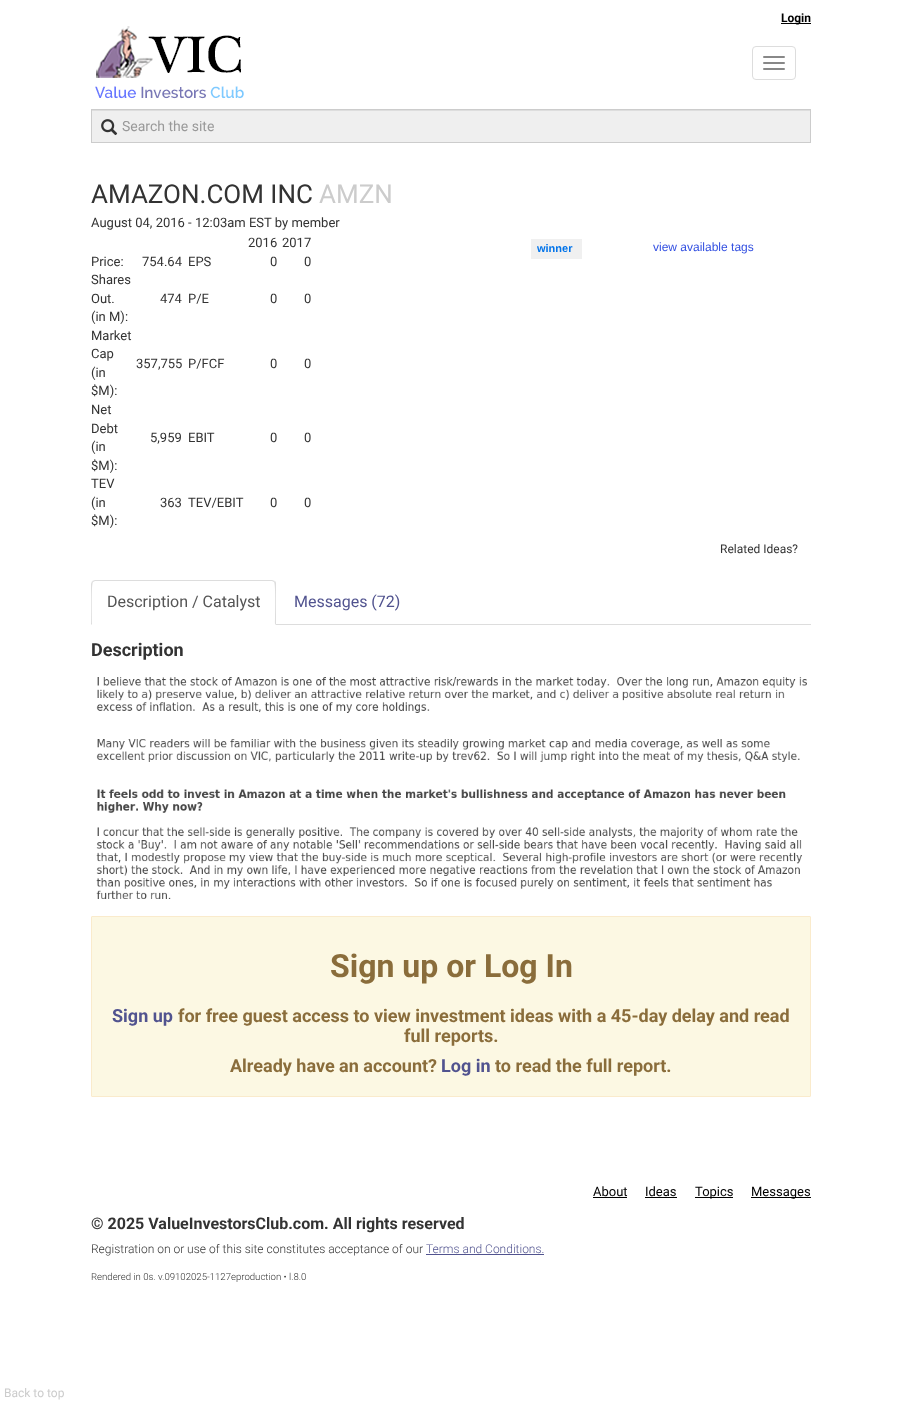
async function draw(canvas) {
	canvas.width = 911;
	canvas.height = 1407;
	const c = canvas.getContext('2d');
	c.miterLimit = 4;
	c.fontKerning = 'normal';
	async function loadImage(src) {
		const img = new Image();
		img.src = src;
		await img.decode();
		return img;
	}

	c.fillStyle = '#fff';
	c.fillRect(0, 0, 911, 1407);
	c.fillStyle = '#000';
	c.fillRect(781, 23, 30, 1);
	c.font = 'bold 12px Roboto';
	c.fillText('Login', 781, 22);
	c.drawImage(await loadImage('img1.png'), 95, 26, 149, 73);
	c.beginPath();
	c.roundRect(752.5, 46.5, 43, 33, 3.5);
	c.strokeStyle = '#ddd';
	c.stroke();
	c.fillStyle = '#888';
	c.beginPath();
	c.roundRect(763, 56, 22, 2, 1);
	c.fill();
	c.beginPath();
	c.roundRect(763, 62, 22, 2, 1);
	c.fill();
	c.beginPath();
	c.roundRect(763, 68, 22, 2, 1);
	c.fill();
	c.fillStyle = '#efefef';
	c.fillRect(92, 111, 718, 31);
	c.fillStyle = '#ddd';
	c.fillRect(92, 110, 718, 1);
	c.strokeStyle = '#ccc';
	c.strokeRect(91.5, 109.5, 719, 33);
	c.drawImage(await loadImage('img2.png'), 101, 119, 17, 17);
	c.font = '14px Roboto';
	c.fillStyle = '#999';
	c.fillText('Search the site', 122, 131);
	c.font = '26px Roboto';
	c.fillStyle = '#333';
	c.fillText('AMAZON.COM INC', 91, 203);
	c.fillStyle = '#ccc';
	c.fillText('AMZN', 319, 203);
	c.font = '13px Roboto';
	c.fillStyle = '#333';
	for (const [text, x, y] of [
		['August 04, 2016 - 12:03am EST by member', 91, 227],
		['2016', 248, 247],
		['2017', 282, 247],
		['Price:', 91, 266],
		['754.64', 142, 266],
		['EPS', 188, 266],
		['0', 270, 266],
		['0', 304, 266],
		['Shares', 91, 284],
		['Out.', 91, 303],
		['(in M):', 91, 321],
		['474', 160, 303],
		['P/E', 188, 303],
		['0', 270, 303],
		['0', 304, 303],
		['Market', 91, 340],
		['Cap', 91, 358],
		['(in', 91, 377],
		['$M):', 91, 395],
		['357,755', 136, 368],
		['P/FCF', 188, 368],
		['0', 270, 368],
		['0', 304, 368],
		['Net', 91, 414],
		['Debt', 91, 433],
		['(in', 91, 451],
		['$M):', 91, 470],
		['5,959', 150, 442],
		['EBIT', 188, 442],
		['0', 270, 442],
		['0', 304, 442],
		['TEV', 91, 488],
		['(in', 91, 507],
		['$M):', 91, 525],
		['363', 160, 507],
		['TEV/EBIT', 188, 507],
		['0', 270, 507],
		['0', 304, 507],
	]) {
		c.fillText(text, x, y);
	}
	c.fillStyle = '#a4a4a4';
	c.filter = 'blur(0.5px)';
	c.beginPath();
	c.rect(531, 239, 51, 20);
	c.fill();
	c.filter = 'none';
	c.fillStyle = '#f0f0f0';
	c.fillRect(531, 239, 51, 20);
	c.font = 'bold 11px Liberation Sans';
	c.fillStyle = '#0073ea';
	c.fillText('winner', 537, 252);
	c.font = '12px Liberation Sans';
	c.fillStyle = '#324fe1';
	c.fillText('view available tags', 653, 251);
	c.font = '12px Roboto';
	c.fillStyle = '#333';
	c.fillText('Related Ideas?', 720, 553);
	c.fillStyle = '#ddd';
	c.fillRect(276, 624, 535, 1);
	c.beginPath();
	c.moveTo(95, 580);
	c.lineTo(92, 581);
	c.lineTo(93, 582);
	c.lineTo(95, 581);
	c.lineTo(272, 581);
	c.lineTo(274, 582);
	c.lineTo(275, 581);
	c.lineTo(272, 580);
	c.closePath();
	c.fill();
	c.beginPath();
	c.moveTo(276, 625);
	c.lineTo(276, 584);
	c.bezierCurveTo(276, 583, 276, 582, 275, 581);
	c.lineTo(274, 582);
	c.bezierCurveTo(276, 584, 275, 619, 275, 624);
	c.closePath();
	c.fill();
	c.beginPath();
	c.moveTo(91, 625);
	c.lineTo(92, 624);
	c.bezierCurveTo(92, 619, 91, 584, 93, 582);
	c.lineTo(92, 581);
	c.lineTo(91, 584);
	c.closePath();
	c.fill();
	c.font = '16px Roboto';
	c.fillStyle = '#555';
	c.fillText('Description / Catalyst', 107, 607);
	c.fillStyle = '#51538f';
	c.fillText('Messages (72)', 294, 607);
	c.font = 'bold 18px Roboto';
	c.fillStyle = '#333';
	c.fillText('Description', 91, 656);
	c.drawImage(await loadImage('img3.png'), 96, 677, 711, 222);
	c.fillStyle = '#fcf8e3';
	c.beginPath();
	c.roundRect(91.5, 916.5, 719, 180, 0.5);
	c.fill();
	c.strokeStyle = '#faebcc';
	c.stroke();
	c.font = 'bold 32px Roboto';
	c.fillStyle = '#8a6d3b';
	c.fillText('Sign up or Log In', 330, 977);
	c.font = 'bold 18px Roboto';
	c.fillStyle = '#51538f';
	c.fillText('Sign up', 112, 1022);
	c.fillStyle = '#8a6d3b';
	for (const [text, x, y] of [
		['for free guest access to view investment ideas with a 45-day delay and read', 178, 1022],
		['full reports.', 404, 1042],
		['Already have an account?', 230, 1072],
	]) {
		c.fillText(text, x, y);
	}
	c.fillStyle = '#51538f';
	c.fillText('Log in', 441, 1072);
	c.fillStyle = '#8a6d3b';
	c.fillText('to read the full report.', 495, 1072);
	c.font = '13px Roboto';
	c.fillStyle = '#000';
	c.fillText('About', 593, 1196);
	c.fillRect(593, 1197, 34, 1);
	c.fillText('Ideas', 645, 1196);
	c.fillRect(645, 1197, 32, 1);
	c.fillRect(695, 1197, 38, 1);
	c.fillText('Topics', 695, 1196);
	c.fillRect(751, 1197, 60, 1);
	c.fillText('Messages', 751, 1196);
	c.font = 'bold 16px Roboto';
	c.fillStyle = '#333';
	c.fillText('© 2025 ValueInvestorsClub.com. All rights reserved', 91, 1229);
	c.font = '300 12px Roboto';
	c.fillText('Registration on or use of this site constitutes acceptance of our', 91, 1253);
	c.fillStyle = '#51538f';
	c.fillText('Terms and Conditions.', 426, 1253);
	c.fillRect(426, 1254, 118, 1);
	c.font = '300 9.6px Roboto';
	c.fillStyle = '#333';
	c.fillText('Rendered in 0s. v.09102025-1127eproduction • l.8.0', 91, 1280);
	c.font = '12px Roboto';
	c.fillStyle = '#ccc';
	c.fillText('Back to top', 4, 1397);
}

draw(document.querySelector('canvas'));
